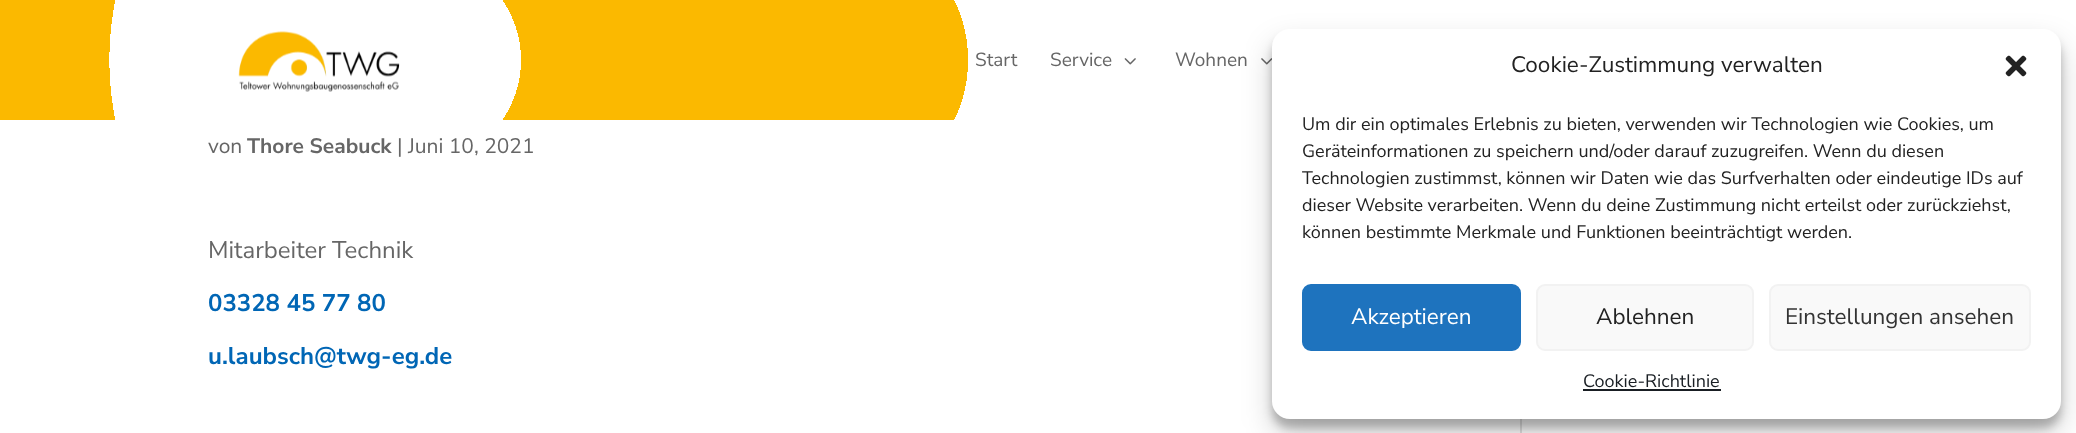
async function draw(canvas) {
	canvas.width = 2076;
	canvas.height = 433;
	const c = canvas.getContext('2d');
	c.miterLimit = 4;
	c.fontKerning = 'normal';
	async function loadImage(src) {
		const img = new Image();
		img.src = src;
		await img.decode();
		return img;
	}
	let gradient;

	c.fillStyle = '#fff';
	c.fillRect(0, 0, 2076, 433);
	gradient = c.createRadialGradient(416, 60, 0, 416, 60, 420);
	gradient.addColorStop(0.73, '#fff');
	gradient.addColorStop(0.73, '#fbb900');
	c.fillStyle = gradient;
	c.fillRect(0, 0, 115, 120);
	gradient = c.createRadialGradient(416, 60, 0, 416, 60, 420);
	gradient.addColorStop(0.25, '#fff');
	gradient.addColorStop(0.25, '#fbb900');
	c.fillStyle = gradient;
	c.fillRect(502, 0, 329, 120);
	c.drawImage(await loadImage('img1.png'), 238, 31, 162, 61);
	gradient = c.createRadialGradient(831, 60, 0, 831, 60, 1246);
	gradient.addColorStop(0.11, '#fbb900');
	gradient.addColorStop(0.11, '#fff');
	c.fillStyle = gradient;
	c.fillRect(831, 0, 141, 120);
	c.font = '19px Nunito Sans';
	c.fillStyle = '#666';
	c.fillText('Start', 975, 66);
	c.fillText('Service', 1050, 66);
	c.drawImage(await loadImage('img2.png'), 1124, 58, 12, 7);
	c.fillText('Wohnen', 1175, 66);
	c.drawImage(await loadImage('img3.png'), 1261, 58, 11, 7);
	c.font = '21px Nunito Sans';
	c.fillText('von', 208, 153);
	c.font = 'bold 21px Nunito Sans';
	c.fillText('Thore Seabuck', 247, 153);
	c.font = '21px Nunito Sans';
	c.fillText('| Juni 10, 2021', 397, 153);
	c.font = '24px Nunito Sans';
	c.fillText('Mitarbeiter Technik', 208, 258);
	c.font = 'bold 24px Nunito Sans';
	c.fillStyle = '#0066b5';
	c.fillText('03328 45 77 80', 208, 311);
	c.fillText('u.laubsch@twg-eg.de', 208, 364);
	c.fillStyle = '#e2e2e2';
	c.fillRect(1520, 419, 2, 14);
	c.fillStyle = '#0000003b';
	c.filter = 'blur(4.5px)';
	c.beginPath();
	c.roundRect(1272, 38, 789, 390, 18);
	c.fill();
	c.filter = 'none';
	c.fillStyle = '#00000030';
	c.filter = 'blur(15px)';
	c.beginPath();
	c.roundRect(1272, 44, 789, 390, 18);
	c.fill();
	c.filter = 'none';
	c.fillStyle = '#fff';
	c.beginPath();
	c.roundRect(1272, 29, 789, 390, 18);
	c.fill();
	c.font = '22.5px Nunito Sans';
	c.fillStyle = '#222';
	c.fillText('Cookie-Zustimmung verwalten', 1511, 72);
	c.drawImage(await loadImage('img4.png'), 2005, 55, 22, 22);
	c.font = '18px Nunito Sans';
	for (const [text, x, y] of [
		['Um dir ein optimales Erlebnis zu bieten, verwenden wir Technologien wie Cookies, um', 1302, 130],
		['Geräteinformationen zu speichern und/oder darauf zuzugreifen. Wenn du diesen', 1302, 157],
		['Technologien zustimmst, können wir Daten wie das Surfverhalten oder eindeutige IDs auf', 1302, 184],
		['dieser Website verarbeiten. Wenn du deine Zustimmung nicht erteilst oder zurückziehst,', 1302, 211],
		['können bestimmte Merkmale und Funktionen beeinträchtigt werden.', 1302, 238],
	]) {
		c.fillText(text, x, y);
	}
	c.fillStyle = '#1e73be';
	c.beginPath();
	c.roundRect(1303, 285, 217, 65, 8);
	c.fill();
	c.strokeStyle = '#1e73be';
	c.lineWidth = 2;
	c.stroke();
	c.font = '22.5px Nunito Sans';
	c.fillStyle = '#fff';
	c.fillText('Akzeptieren', 1351, 324);
	c.fillStyle = '#f9f9f9';
	c.beginPath();
	c.roundRect(1537, 285, 216, 65, 8);
	c.fill();
	c.strokeStyle = '#f2f2f2';
	c.stroke();
	c.fillStyle = '#222';
	c.fillText('Ablehnen', 1596, 324);
	c.fillStyle = '#f9f9f9';
	c.beginPath();
	c.roundRect(1770, 285, 260, 65, 8);
	c.fill();
	c.stroke();
	c.fillStyle = '#333';
	c.fillText('Einstellungen ansehen', 1785, 324);
	c.font = '18px Nunito Sans';
	c.fillStyle = '#191e23';
	c.fillText('Cookie-Richtlinie', 1583, 387);
	c.fillRect(1583, 389, 138, 2);
}

draw(document.querySelector('canvas'));
